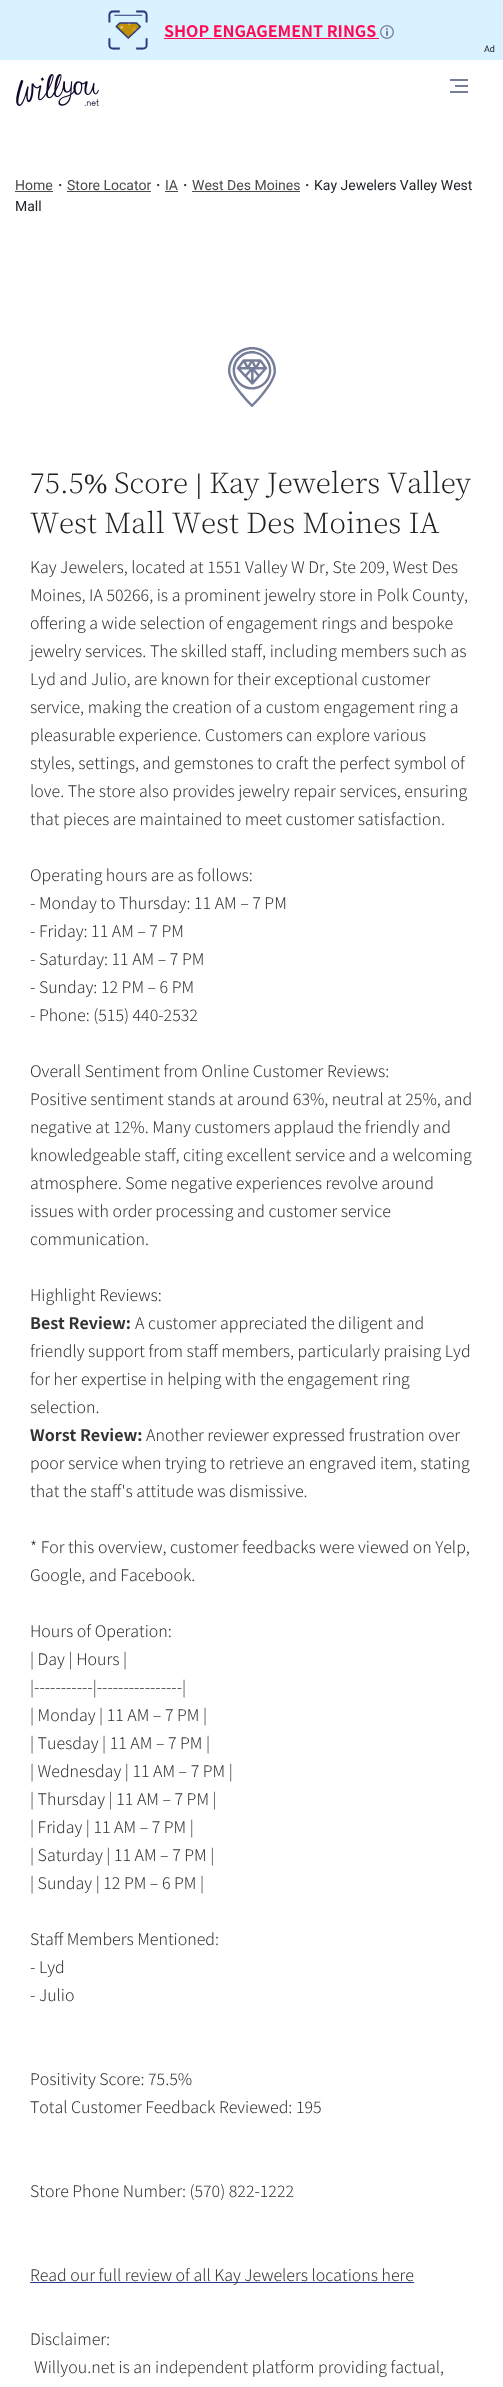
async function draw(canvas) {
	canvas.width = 503;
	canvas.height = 2387;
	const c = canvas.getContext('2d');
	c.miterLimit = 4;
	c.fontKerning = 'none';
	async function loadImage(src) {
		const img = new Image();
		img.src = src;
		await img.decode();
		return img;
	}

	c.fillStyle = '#fff';
	c.fillRect(0, 0, 503, 2387);
	c.fillStyle = '#d9f2ff';
	c.fillRect(0, 0, 503, 60);
	c.drawImage(await loadImage('img1.png'), 108, 10, 40, 40);
	c.font = '100 16px Noto Sans KR';
	c.fillStyle = '#ff0a53';
	c.fillText('SHOP ENGAGEMENT RINGS', 164, 37);
	c.fillRect(164, 38, 215, 1);
	c.drawImage(await loadImage('img2.png'), 380, 25, 14, 14);
	c.font = '9px Roboto';
	c.fillStyle = '#212529';
	c.fillText('Ad', 484, 52);
	c.drawImage(await loadImage('img3.png'), 16, 74, 83, 32);
	c.drawImage(await loadImage('img4.png'), 450, 79, 18, 14);
	c.font = '14px Roboto';
	c.fillStyle = '#4a4a4a';
	c.fillText('Home', 15, 190);
	c.fillRect(15, 191, 38, 1);
	c.font = '500 14px WenQuanYi Zen Hei';
	c.fillStyle = '#212529';
	c.fillText('・', 53, 190);
	c.font = '14px Roboto';
	c.fillStyle = '#4a4a4a';
	c.fillText('Store Locator', 67, 190);
	c.fillRect(67, 191, 84, 1);
	c.font = '500 14px WenQuanYi Zen Hei';
	c.fillStyle = '#212529';
	c.fillText('・', 151, 190);
	c.font = '14px Roboto';
	c.fillStyle = '#4a4a4a';
	c.fillText('IA', 165, 190);
	c.fillRect(165, 191, 13, 1);
	c.font = '500 14px WenQuanYi Zen Hei';
	c.fillStyle = '#212529';
	c.fillText('・', 178, 190);
	c.font = '14px Roboto';
	c.fillStyle = '#4a4a4a';
	c.fillText('West Des Moines', 192, 190);
	c.fillRect(192, 191, 108, 1);
	c.font = '500 14px WenQuanYi Zen Hei';
	c.fillStyle = '#212529';
	c.fillText('・', 300, 190);
	c.font = '14px Roboto';
	c.fillText('Kay Jewelers Valley West', 314, 190);
	c.fillText('Mall', 15, 211);
	c.drawImage(await loadImage('img5.png'), 228, 347, 48, 60);
	c.font = '200 28px Noto Serif SC';
	c.fillStyle = '#212121';
	c.fillText('75.5', 30, 493);
	c.font = '28px Liberation Serif';
	c.fillText('%', 84, 493);
	c.font = '200 28px Noto Serif SC';
	c.fillText('Score', 114, 493);
	c.font = '28px Liberation Serif';
	c.fillText('|', 196, 493);
	c.font = '200 28px Noto Serif SC';
	c.fillText('Kay Jewelers Valley', 209, 493);
	c.fillText('West Mall West', 30, 533);
	c.fillText('Des Moines IA', 246, 533);
	c.font = '300 16px Noto Sans KR';
	c.fillStyle = '#333';
	for (const [text, x, y] of [
		['Kay Jewelers, located at 1551 Valley W Dr, Ste 209, West Des', 30, 573],
		['Moines, IA 50266, is a prominent jewelry store in Polk County,', 30, 601],
		['offering a wide selection of engagement rings and bespoke', 30, 629],
		['jewelry services. The skilled staff, including members such as', 30, 657],
		['Lyd and Julio, are known for their exceptional customer', 30, 685],
		['service, making the creation of a custom engagement ring a', 30, 713],
		['pleasurable experience. Customers can explore various', 30, 741],
		['styles, settings, and gemstones to craft the perfect symbol of', 30, 769],
		['love. The store also provides jewelry repair services, ensuring', 30, 797],
		['that pieces are maintained to meet customer satisfaction.', 30, 825],
		['Operating hours are as follows:', 30, 881],
		['- Monday to Thursday: 11 AM – 7 PM', 30, 909],
		['- Friday: 11 AM – 7 PM', 30, 937],
		['- Saturday: 11 AM – 7 PM', 30, 965],
		['- Sunday: 12 PM – 6 PM', 30, 993],
		['- Phone: (515) 440-2532', 30, 1021],
		['Overall Sentiment from Online Customer Reviews:', 30, 1077],
		['Positive sentiment stands at around 63%, neutral at 25%, and', 30, 1105],
		['negative at 12%. Many customers applaud the friendly and', 30, 1133],
		['knowledgeable staff, citing excellent service and a welcoming', 30, 1161],
		['atmosphere. Some negative experiences revolve around', 30, 1189],
		['issues with order processing and customer service', 30, 1217],
		['communication.', 30, 1245],
		['Highlight Reviews:', 30, 1301],
	]) {
		c.fillText(text, x, y);
	}
	c.font = '100 16px Noto Sans KR';
	c.fillText('Best Review:', 30, 1329);
	c.font = '300 16px Noto Sans KR';
	for (const [text, x, y] of [
		['A customer appreciated the diligent and', 135, 1329],
		['friendly support from staff members, particularly praising Lyd', 30, 1357],
		['for her expertise in helping with the engagement ring', 30, 1385],
		['selection.', 30, 1413],
	]) {
		c.fillText(text, x, y);
	}
	c.font = '100 16px Noto Sans KR';
	c.fillText('Worst Review:', 30, 1441);
	c.font = '300 16px Noto Sans KR';
	for (const [text, x, y] of [
		['Another reviewer expressed frustration over', 146, 1441],
		['poor service when trying to retrieve an engraved item, stating', 30, 1469],
		['that the staff\'s attitude was dismissive.', 30, 1497],
		['* For this overview, customer feedbacks were viewed on Yelp,', 30, 1553],
		['Google, and Facebook.', 30, 1581],
		['Hours of Operation:', 30, 1637],
		['| Day | Hours |', 30, 1665],
		['|-----------|----------------|', 30, 1693],
		['| Monday | 11 AM – 7 PM |', 30, 1721],
		['| Tuesday | 11 AM – 7 PM |', 30, 1749],
		['| Wednesday | 11 AM – 7 PM |', 30, 1777],
		['| Thursday | 11 AM – 7 PM |', 30, 1805],
		['| Friday | 11 AM – 7 PM |', 30, 1833],
		['| Saturday | 11 AM – 7 PM |', 30, 1861],
		['| Sunday | 12 PM – 6 PM |', 30, 1889],
		['Staff Members Mentioned:', 30, 1945],
		['- Lyd', 30, 1973],
		['- Julio', 30, 2001],
		['Positivity Score: 75.5%', 30, 2085],
		['Total Customer Feedback Reviewed: 195', 30, 2113],
		['Store Phone Number: (570) 822-1222', 30, 2197],
	]) {
		c.fillText(text, x, y);
	}
	c.fillStyle = '#293887';
	c.fillRect(30, 2282, 384, 1);
	c.fillStyle = '#333';
	for (const [text, x, y] of [
		['Read our full review of all Kay Jewelers locations here', 30, 2281],
		['Disclaimer:', 30, 2345],
		['Willyou.net is an independent platform providing factual,', 34, 2373],
	]) {
		c.fillText(text, x, y);
	}
}

draw(document.querySelector('canvas'));
